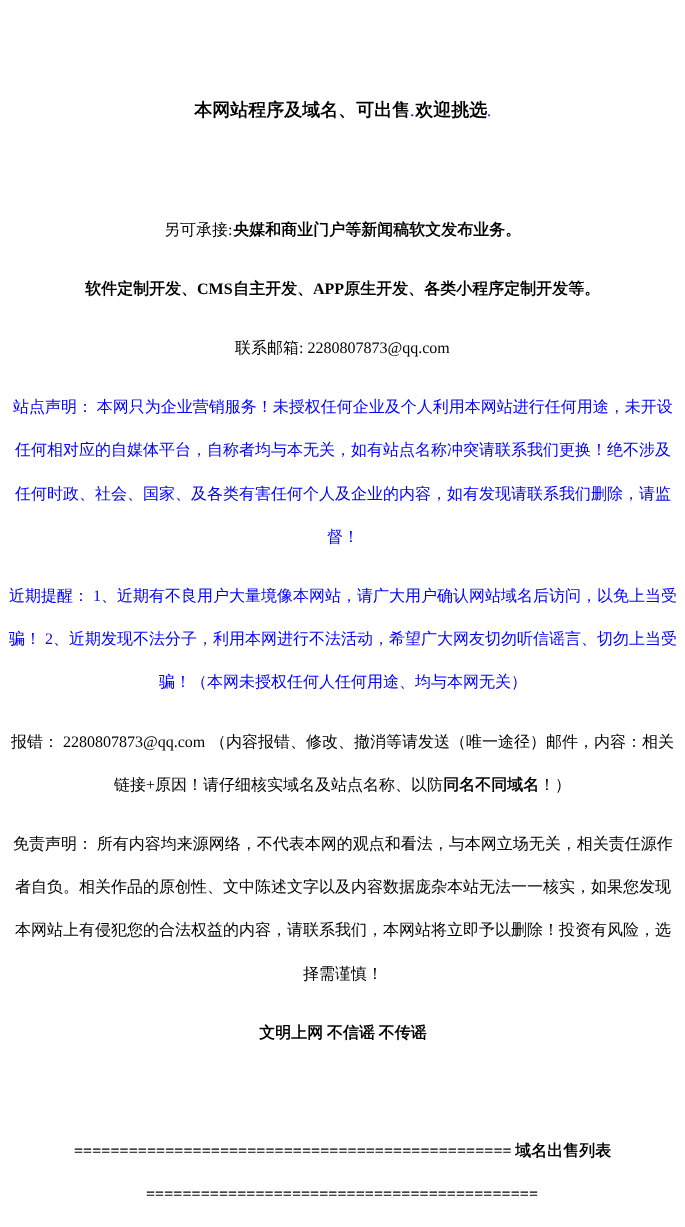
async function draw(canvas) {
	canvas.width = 685;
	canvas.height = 1227;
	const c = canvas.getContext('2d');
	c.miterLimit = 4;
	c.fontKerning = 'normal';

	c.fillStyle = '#fff';
	c.fillRect(0, 0, 685, 1227);
	c.font = 'bold 18px WenQuanYi Zen Hei';
	c.fillStyle = '#000';
	c.fillText('本网站程序及域名、可出售', 194, 116);
	c.font = '18px Liberation Serif';
	c.fillStyle = '#00f';
	c.fillText('.', 410, 116);
	c.font = 'bold 18px WenQuanYi Zen Hei';
	c.fillStyle = '#000';
	c.fillText('欢迎挑选', 415, 116);
	c.font = '16px Liberation Serif';
	c.fillStyle = '#00f';
	c.fillText('.', 487, 116);
	c.font = '500 16px WenQuanYi Zen Hei';
	c.fillStyle = '#000';
	c.fillText('另可承接', 164, 235);
	c.font = '16px Liberation Serif';
	c.fillText(':', 228, 235);
	c.font = 'bold 16px WenQuanYi Zen Hei';
	c.fillText('央媒和商业门户等新闻稿软文发布业务。', 233, 235);
	c.fillText('软件定制开发、', 85, 294);
	c.font = 'bold 16px Liberation Serif';
	c.fillText('CMS', 197, 294);
	c.font = 'bold 16px WenQuanYi Zen Hei';
	c.fillText('自主开发、', 233, 294);
	c.font = 'bold 16px Liberation Serif';
	c.fillText('APP', 313, 294);
	c.font = 'bold 16px WenQuanYi Zen Hei';
	c.fillText('原生开发、各类小程序定制开发等。', 344, 294);
	c.font = '500 16px WenQuanYi Zen Hei';
	c.fillText('联系邮箱', 235, 353);
	c.font = '16px Liberation Serif';
	c.fillText(': 2280807873@qq.com', 299, 353);
	c.wordSpacing = '-1px';
	c.font = '500 16px WenQuanYi Zen Hei';
	c.fillStyle = '#00f';
	c.fillText('站点声明： 本网只为企业营销服务！未授权任何企业及个人利用本网站进行任何用途，未开设', 13, 412);
	c.wordSpacing = '0px';
	for (const [text, x, y] of [
		['任何相对应的自媒体平台，自称者均与本无关，如有站点名称冲突请联系我们更换！绝不涉及', 15, 455],
		['任何时政、社会、国家、及各类有害任何个人及企业的内容，如有发现请联系我们删除，请监', 15, 499],
		['督！', 327, 542],
		['近期提醒：', 9, 601],
	]) {
		c.fillText(text, x, y);
	}
	c.font = '16px Liberation Serif';
	c.fillText('1', 93, 601);
	c.font = '500 16px WenQuanYi Zen Hei';
	c.fillText('、近期有不良用户大量境像本网站，请广大用户确认网站域名后访问，以免上当受', 101, 601);
	c.fillText('骗！', 9, 644);
	c.font = '16px Liberation Serif';
	c.fillText('2', 45, 644);
	c.font = '500 16px WenQuanYi Zen Hei';
	c.fillText('、近期发现不法分子，利用本网进行不法活动，希望广大网友切勿听信谣言、切勿上当受', 53, 644);
	c.fillText('骗！（本网未授权任何人任何用途、均与本网无关）', 159, 687);
	c.fillStyle = '#000';
	c.fillText('报错：', 11, 747);
	c.font = '16px Liberation Serif';
	c.fillText('2280807873@qq.com', 63, 747);
	c.font = '500 16px WenQuanYi Zen Hei';
	c.fillText('（内容报错、修改、撤消等请发送（唯一途径）邮件，内容：相关', 210, 747);
	c.fillText('链接', 114, 790);
	c.font = '16px Liberation Serif';
	c.fillText('+', 146, 790);
	c.font = '500 16px WenQuanYi Zen Hei';
	c.fillText('原因！请仔细核实域名及站点名称、以防', 155, 790);
	c.font = 'bold 16px WenQuanYi Zen Hei';
	c.fillText('同名不同域名', 443, 790);
	c.font = '500 16px WenQuanYi Zen Hei';
	c.fillText('！）', 539, 790);
	c.wordSpacing = '-1px';
	c.fillText('免责声明： 所有内容均来源网络，不代表本网的观点和看法，与本网立场无关，相关责任源作', 13, 849);
	c.wordSpacing = '0px';
	for (const [text, x, y] of [
		['者自负。相关作品的原创性、文中陈述文字以及内容数据庞杂本站无法一一核实，如果您发现', 15, 892],
		['本网站上有侵犯您的合法权益的内容，请联系我们，本网站将立即予以删除！投资有风险，选', 15, 935],
		['择需谨慎！', 303, 979],
	]) {
		c.fillText(text, x, y);
	}
	c.wordSpacing = '-1px';
	c.font = 'bold 16px WenQuanYi Zen Hei';
	c.fillText('文明上网 不信谣 不传谣', 259, 1038);
	c.wordSpacing = '0px';
	c.font = 'bold 16px Liberation Serif';
	c.fillText('================================================', 74, 1156);
	c.font = 'bold 16px WenQuanYi Zen Hei';
	c.fillText('域名出售列表', 515, 1156);
	c.font = 'bold 16px Liberation Serif';
	c.fillText('===========================================', 146, 1199);
}

draw(document.querySelector('canvas'));
